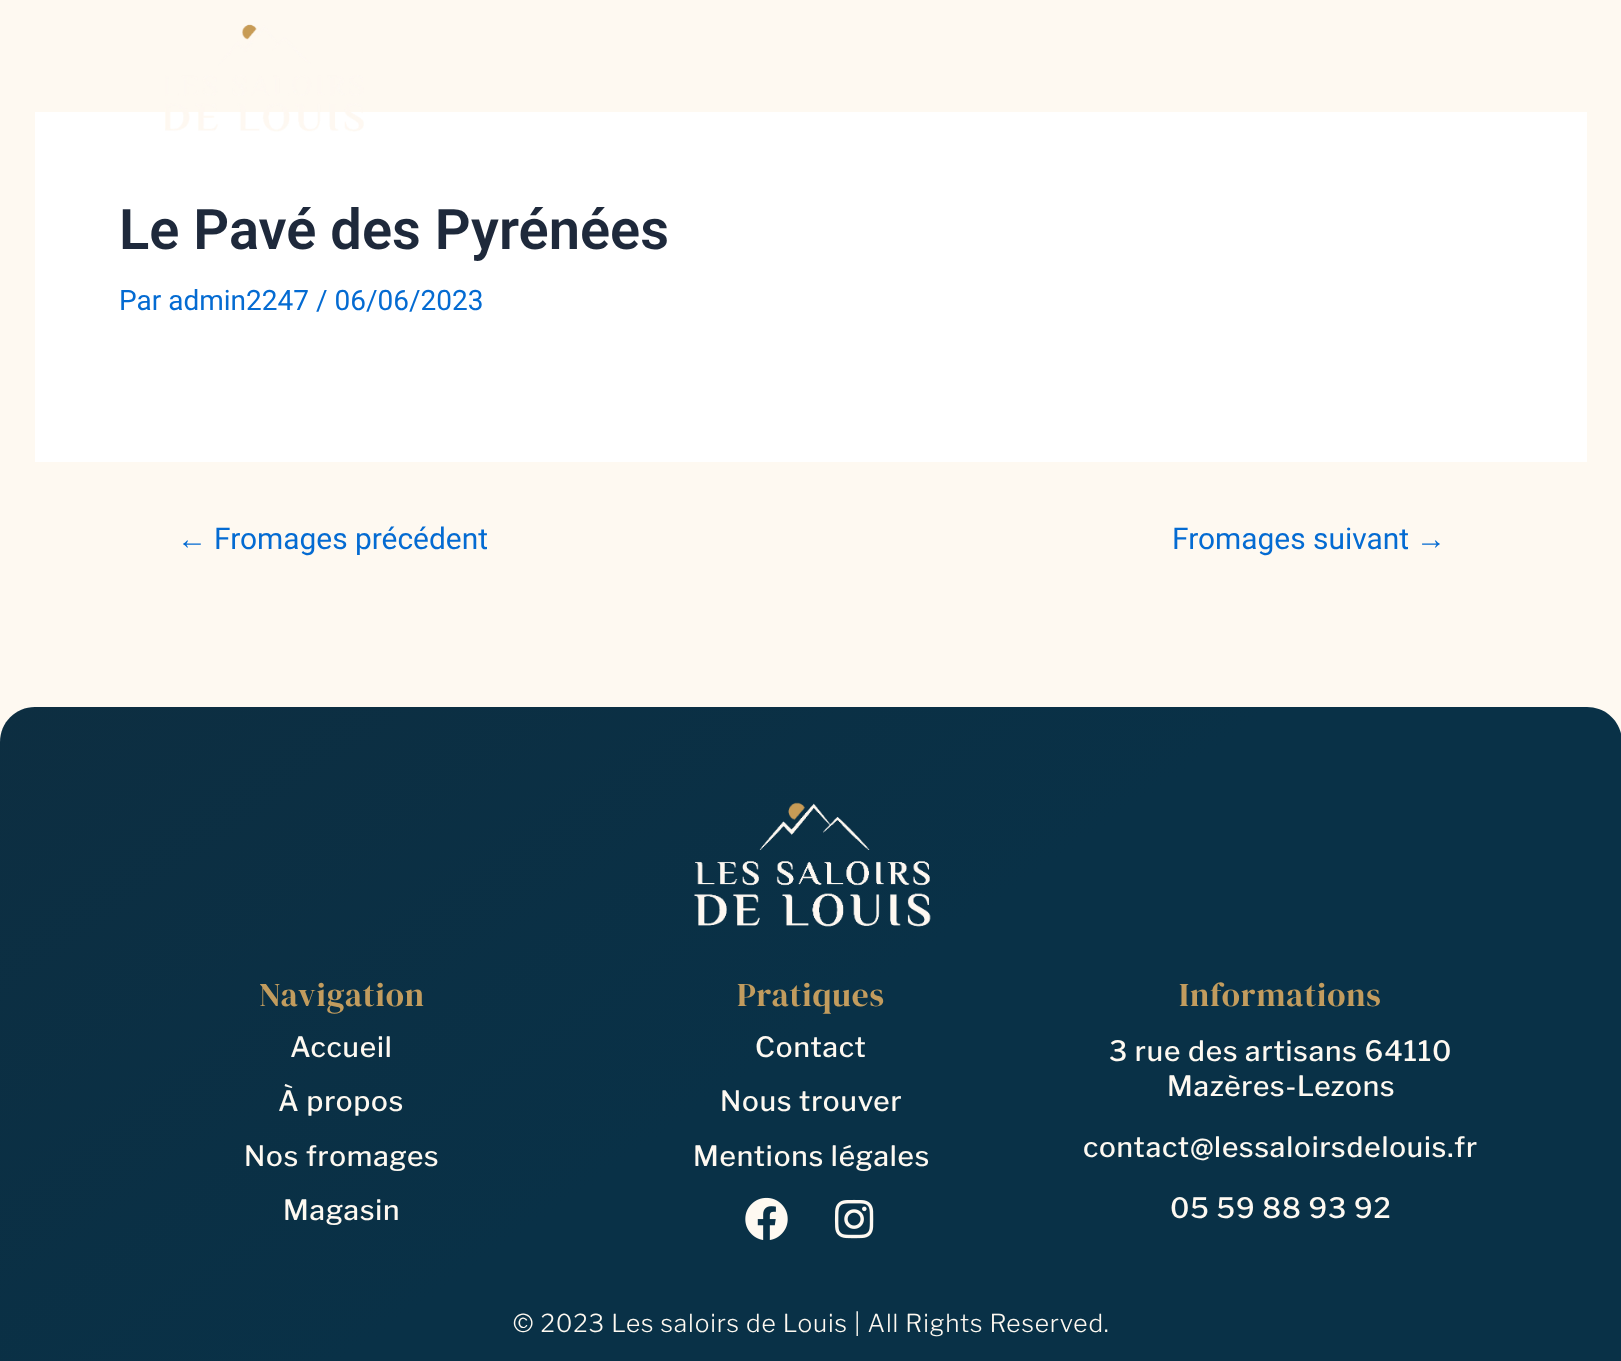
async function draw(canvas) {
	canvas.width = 1621;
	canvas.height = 1361;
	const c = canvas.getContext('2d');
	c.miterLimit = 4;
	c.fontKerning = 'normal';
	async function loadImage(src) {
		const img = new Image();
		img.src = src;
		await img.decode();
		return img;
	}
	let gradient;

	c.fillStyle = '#fef9f1';
	c.fillRect(0, 0, 1621, 1361);
	c.fillStyle = '#fff';
	c.fillRect(35, 112, 1552, 350);
	c.drawImage(await loadImage('img1.png'), 165, 24, 199, 108);
	c.font = '600 56px Roboto';
	c.fillStyle = '#1e293b';
	c.fillText('Le Pavé des Pyrénées', 119, 249);
	c.font = '28px Roboto';
	c.fillStyle = '#046bd2';
	c.fillText('Par admin2247 / 06/06/2023', 119, 310);
	c.font = '29.9px Liberation Sans';
	c.fillText('←', 177, 549);
	c.font = '29.9px Roboto';
	c.fillText('Fromages précédent', 214, 549);
	c.fillText('Fromages suivant', 1172, 549);
	c.font = '29.9px Liberation Sans';
	c.fillText('→', 1416, 549);
	gradient = c.createLinearGradient(391, 434, 1232, 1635);
	gradient.addColorStop(0, '#0d2e41');
	gradient.addColorStop(0.5, '#093147');
	c.fillStyle = gradient;
	c.beginPath();
	c.moveTo(35, 707);
	c.lineTo(1587, 707);
	c.bezierCurveTo(1606.5, 707, 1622, 722.5, 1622, 742);
	c.lineTo(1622, 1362);
	c.lineTo(0, 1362);
	c.lineTo(0, 742);
	c.bezierCurveTo(0, 722.5, 15.5, 707, 35, 707);
	c.closePath();
	c.fill();
	c.drawImage(await loadImage('img2.png'), 694, 802, 237, 125);
	c.letterSpacing = '0.88px';
	c.font = '33.25px DM Serif Display';
	c.fillStyle = '#c29c5e';
	c.fillText('Navigation', 259, 1006);
	c.font = '500 28px Libre Franklin';
	c.fillStyle = '#fef9f1';
	for (const [text, x, y] of [
		['Accueil', 290, 1057],
		['À propos', 278, 1111],
		['Nos fromages', 244, 1166],
		['Magasin', 283, 1220],
	]) {
		c.fillText(text, x, y);
	}
	c.font = '33.25px DM Serif Display';
	c.fillStyle = '#c29c5e';
	c.fillText('Pratiques', 737, 1006);
	c.font = '500 28px Libre Franklin';
	c.fillStyle = '#fef9f1';
	for (const [text, x, y] of [
		['Contact', 755, 1057],
		['Nous trouver', 720, 1111],
		['Mentions légales', 693, 1166],
	]) {
		c.fillText(text, x, y);
	}
	c.drawImage(await loadImage('img3.png'), 745, 1197, 43, 43);
	c.drawImage(await loadImage('img4.png'), 834, 1199, 40, 40);
	c.font = '33.25px DM Serif Display';
	c.fillStyle = '#c29c5e';
	c.fillText('Informations', 1179, 1006);
	c.font = '500 28px Libre Franklin';
	c.fillStyle = '#fef9f1';
	for (const [text, x, y] of [
		['3 rue des artisans 64110', 1109, 1061],
		['Mazères-Lezons', 1167, 1096],
		['contact@lessaloirsdelouis.fr', 1083, 1157],
		['05 59 88 93 92', 1170, 1218],
	]) {
		c.fillText(text, x, y);
	}
	c.font = '300 24.5px Libre Franklin';
	c.fillText('© 2023 Les saloirs de Louis | All Rights Reserved.', 513, 1332);
}

draw(document.querySelector('canvas'));
